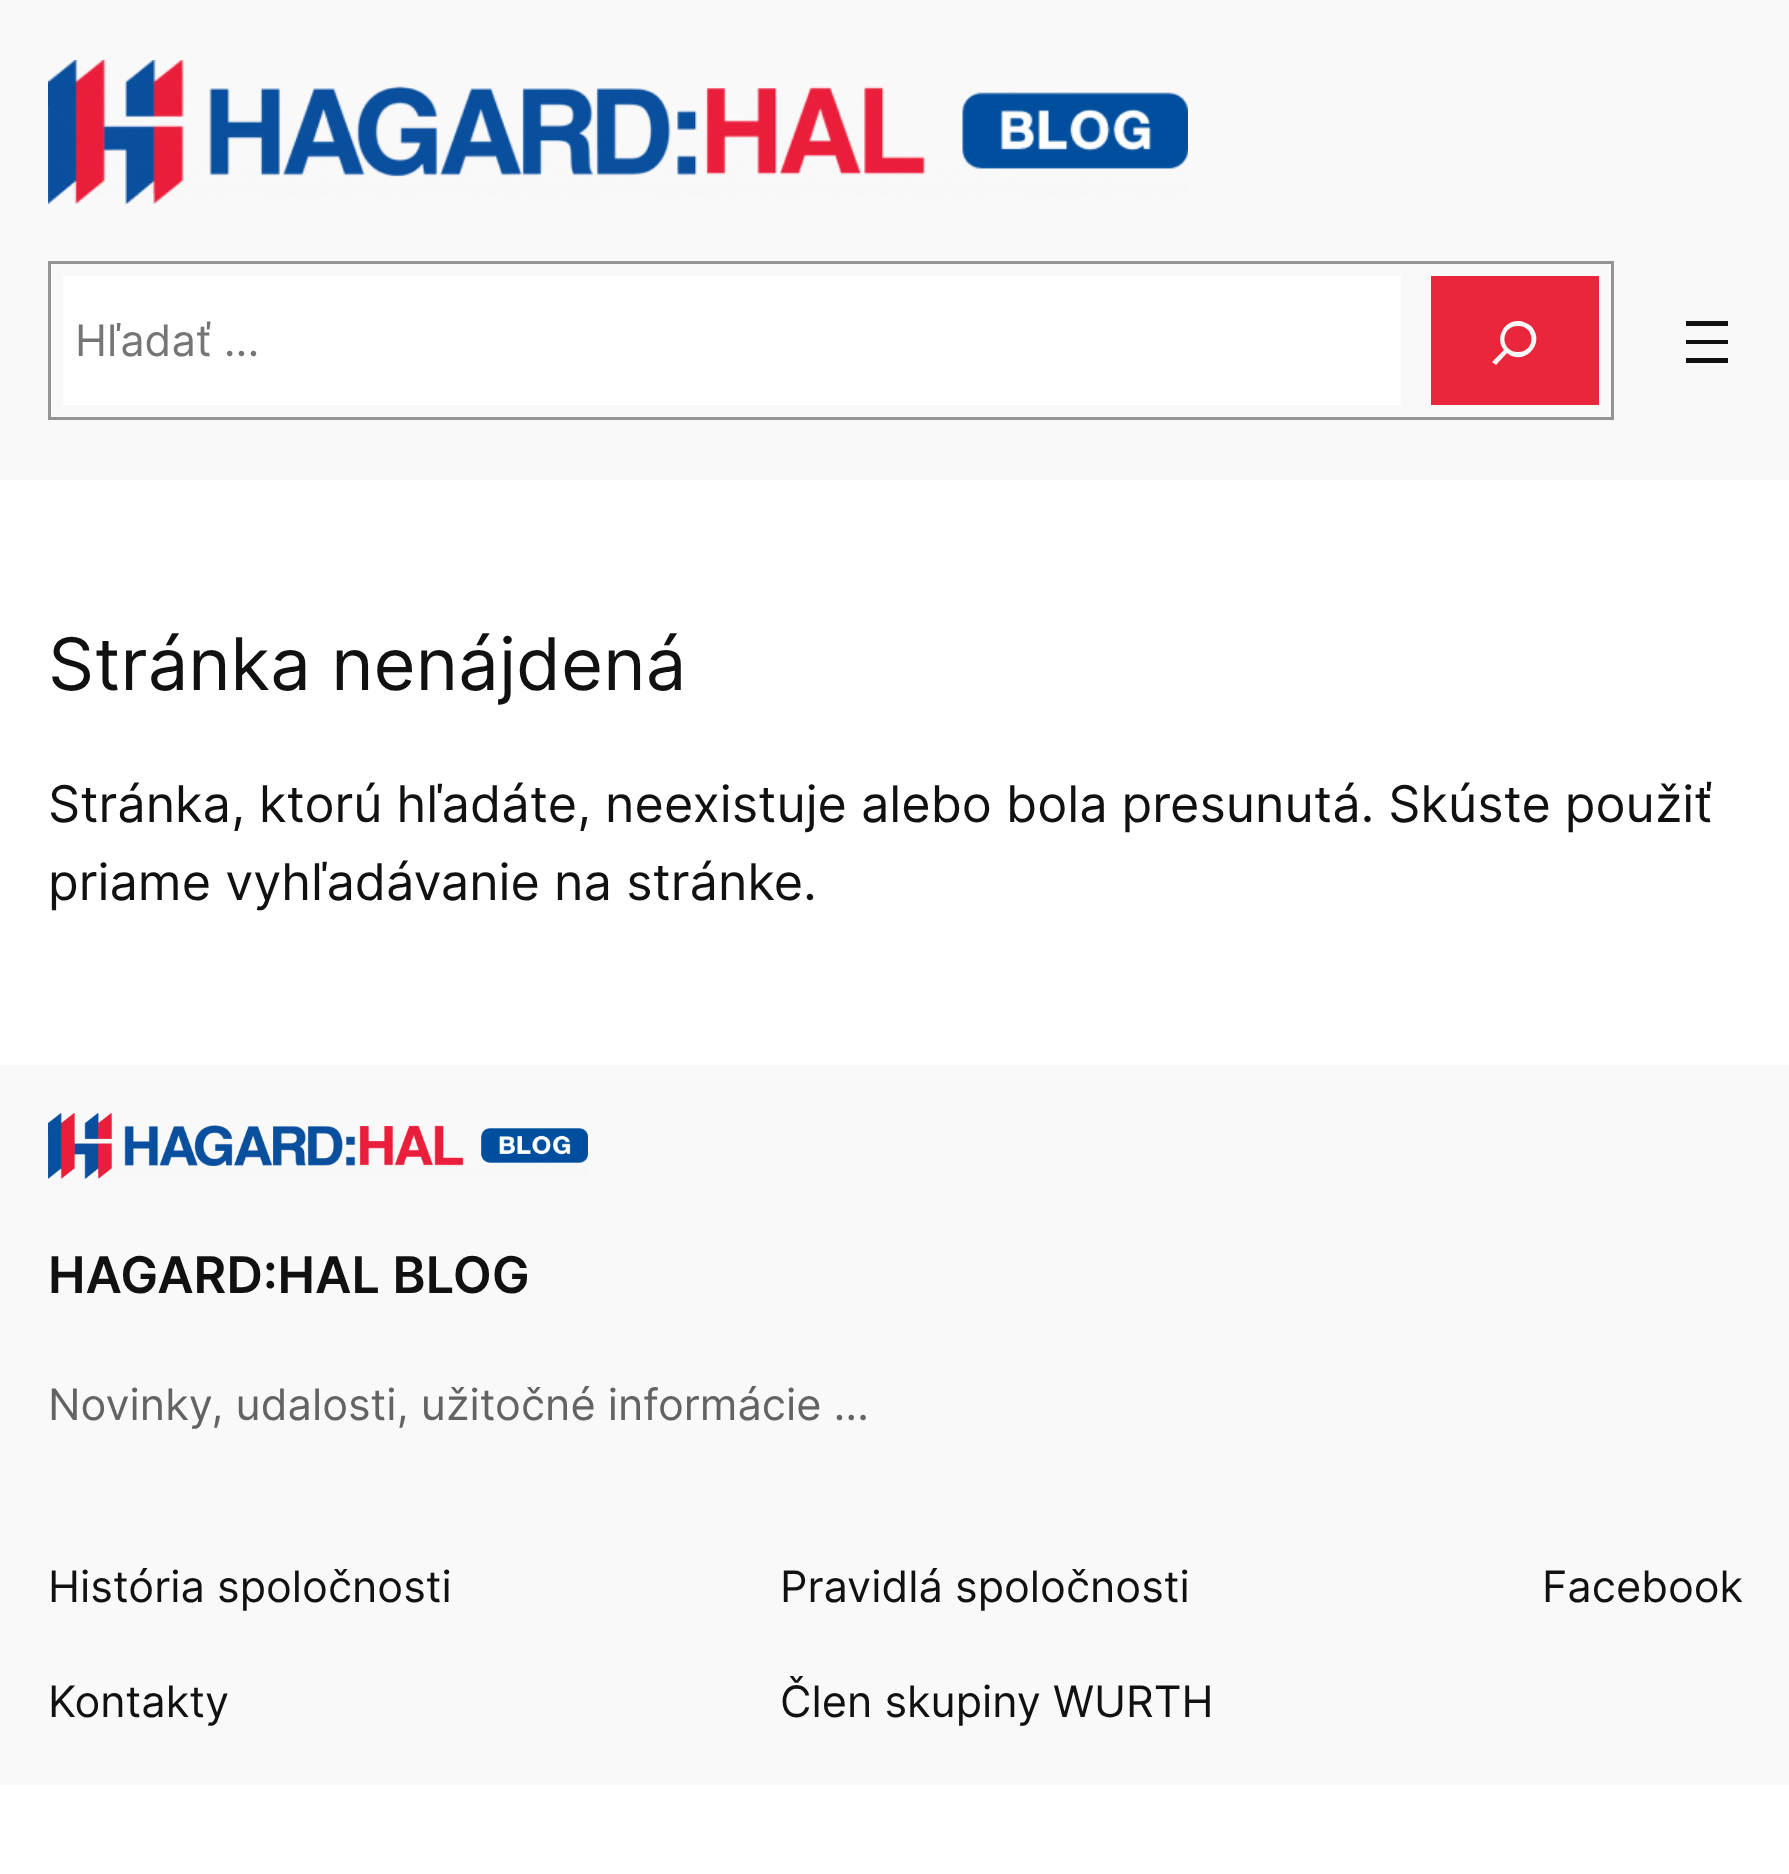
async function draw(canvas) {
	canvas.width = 1789;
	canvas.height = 1874;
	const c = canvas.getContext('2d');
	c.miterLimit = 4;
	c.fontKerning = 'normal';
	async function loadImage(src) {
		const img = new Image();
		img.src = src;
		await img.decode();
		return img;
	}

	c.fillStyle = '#fff';
	c.fillRect(0, 0, 1789, 1874);
	c.fillStyle = '#f9f9f9';
	c.fillRect(0, 0, 1789, 480);
	c.drawImage(await loadImage('img1.png'), 48, 60, 1140, 144);
	c.strokeStyle = '#949494';
	c.lineWidth = 3;
	c.strokeRect(49.5, 262.5, 1563, 156);
	c.fillStyle = '#fff';
	c.fillRect(63, 276, 1338, 129);
	c.font = '43.25px Inter';
	c.fillStyle = '#757575';
	c.fillText('Hľadať ...', 75, 356);
	c.fillStyle = '#e9263b';
	c.fillRect(1431, 276, 168, 129);
	c.fillStyle = '#f9f9f9';
	c.beginPath();
	c.moveTo(1518, 321);
	c.bezierCurveTo(1503, 321, 1495, 339, 1504, 350);
	c.lineTo(1492, 362);
	c.lineTo(1496, 365);
	c.lineTo(1507, 353);
	c.bezierCurveTo(1524, 367, 1547, 343, 1531, 326);
	c.bezierCurveTo(1527, 323, 1523, 321, 1518, 321);
	c.closePath();
	c.moveTo(1518, 352);
	c.bezierCurveTo(1500, 352, 1500, 326, 1518, 326);
	c.bezierCurveTo(1536, 326, 1536, 352, 1518, 352);
	c.closePath();
	c.fill();
	c.fillStyle = '#111';
	c.beginPath();
	c.moveTo(1686, 321);
	c.lineTo(1686, 326);
	c.lineTo(1728, 326);
	c.lineTo(1728, 321);
	c.closePath();
	c.moveTo(1686, 344);
	c.lineTo(1728, 344);
	c.lineTo(1728, 340);
	c.lineTo(1686, 340);
	c.closePath();
	c.moveTo(1686, 363);
	c.lineTo(1728, 363);
	c.lineTo(1728, 358);
	c.lineTo(1686, 358);
	c.closePath();
	c.fill();
	c.font = '72.4px Inter';
	c.fillText('Stránka nenájdená', 48, 690);
	c.wordSpacing = '-0.25px';
	c.font = '50.4px Inter';
	c.fillText('Stránka, ktorú hľadáte, neexistuje alebo bola presunutá. Skúste použiť', 48, 822);
	c.wordSpacing = '0px';
	c.fillText('priame vyhľadávanie na stránke.', 48, 900);
	c.fillStyle = '#f9f9f9';
	c.fillRect(0, 1065, 1789, 720);
	c.drawImage(await loadImage('img2.png'), 48, 1113, 540, 66);
	c.font = '600 50.4px Inter';
	c.fillStyle = '#111';
	c.fillText('HAGARD:HAL BLOG', 48, 1293);
	c.font = '43.25px Inter';
	c.fillStyle = '#636363';
	c.fillText('Novinky, udalosti, užitočné informácie …', 48, 1420);
	c.fillStyle = '#111';
	for (const [text, x, y] of [
		['História spoločnosti', 48, 1602],
		['Kontakty', 48, 1717],
		['Pravidlá spoločnosti', 780, 1602],
		['Člen skupiny WURTH', 780, 1717],
		['Facebook', 1542, 1602],
	]) {
		c.fillText(text, x, y);
	}
}

draw(document.querySelector('canvas'));
